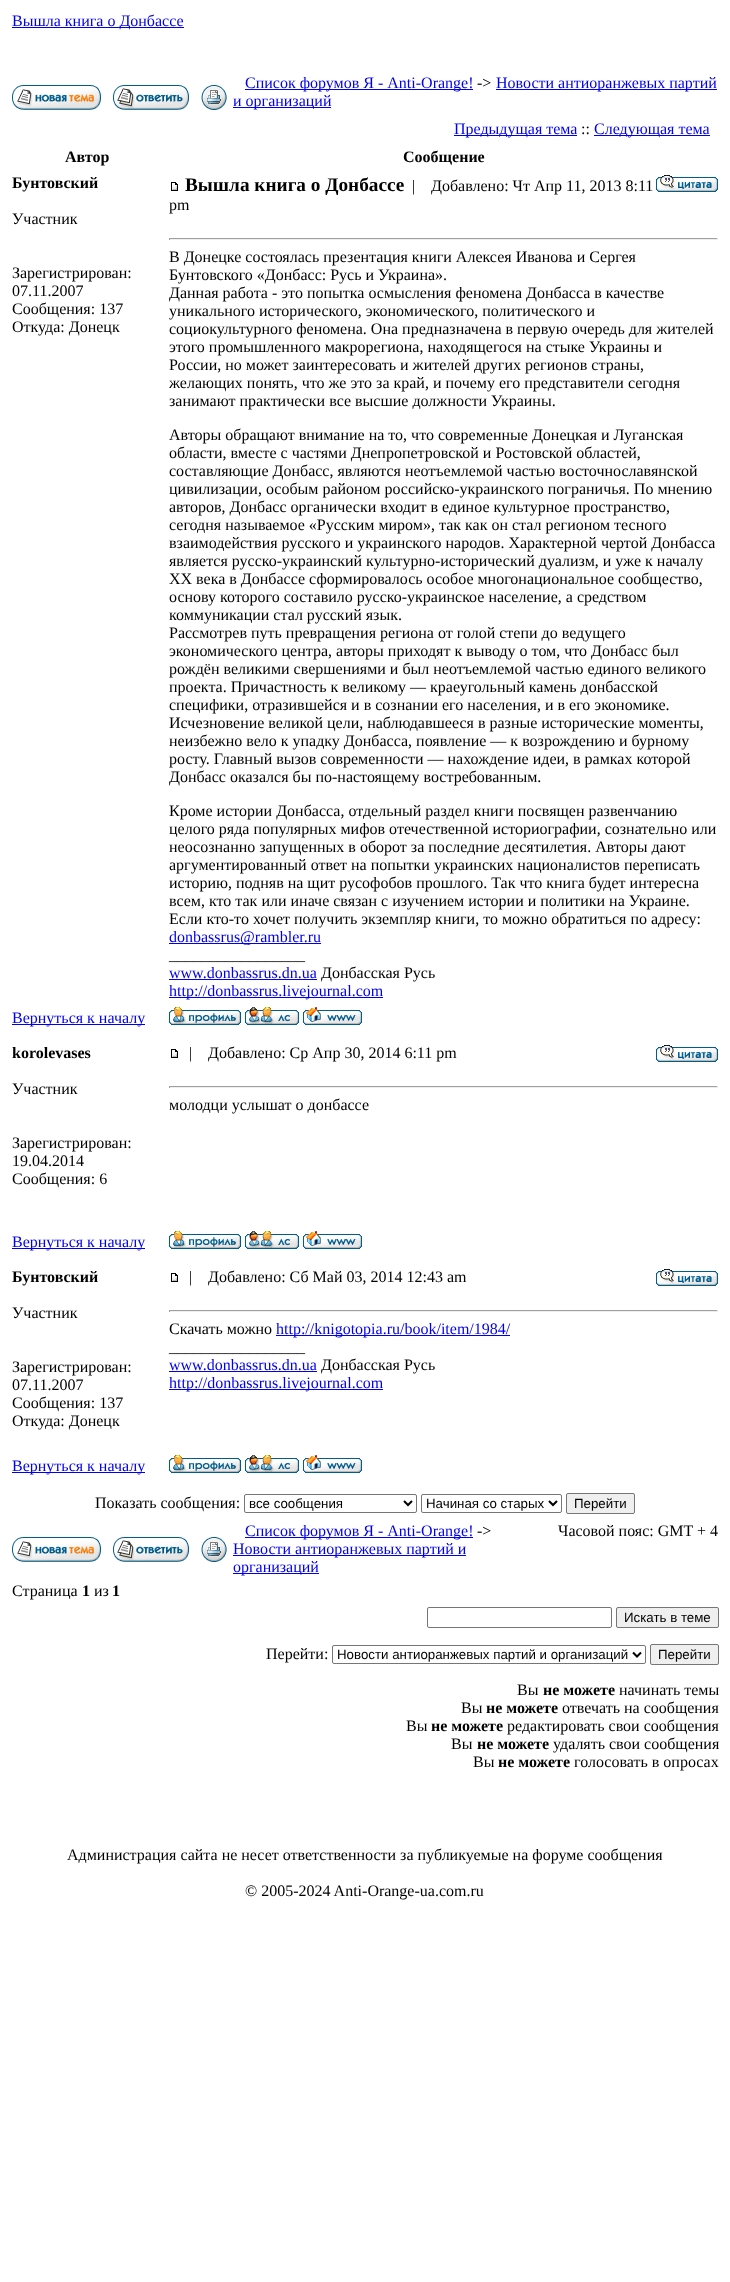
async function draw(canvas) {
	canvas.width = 730;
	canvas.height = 2282;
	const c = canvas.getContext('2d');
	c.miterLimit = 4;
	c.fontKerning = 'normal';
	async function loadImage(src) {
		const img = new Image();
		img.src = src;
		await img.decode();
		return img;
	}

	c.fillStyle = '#fff';
	c.fillRect(0, 0, 730, 2282);
	c.fillStyle = '#00e';
	c.fillRect(12, 27, 172, 1);
	c.font = '16px Liberation Serif';
	c.fillText('Вышла книга о Донбассе', 12, 26);
	c.drawImage(await loadImage('img1.png'), 12, 85, 89, 25);
	c.drawImage(await loadImage('img2.png'), 113, 85, 76, 25);
	c.drawImage(await loadImage('img3.png'), 201, 85, 26, 25);
	c.fillRect(245, 89, 228, 1);
	c.fillText('Список форумов Я - Anti-Orange!', 245, 88);
	c.fillStyle = '#000';
	c.fillText('->', 477, 88);
	c.fillStyle = '#00e';
	c.fillRect(496, 89, 221, 1);
	c.fillText('Новости антиоранжевых партий', 496, 88);
	c.fillRect(233, 107, 98, 1);
	c.fillText('и организаций', 233, 106);
	c.fillRect(454, 135, 123, 1);
	c.fillText('Предыдущая тема', 454, 134);
	c.fillStyle = '#000';
	c.fillText('::', 581, 134);
	c.fillStyle = '#00e';
	c.fillRect(594, 135, 116, 1);
	c.fillText('Следующая тема', 594, 134);
	c.font = 'bold 16px Liberation Serif';
	c.fillStyle = '#000';
	for (const [text, x, y] of [
		['Автор', 65, 162],
		['Сообщение', 403, 162],
		['Бунтовский', 12, 188],
	]) {
		c.fillText(text, x, y);
	}
	c.font = '16px Liberation Serif';
	for (const [text, x, y] of [
		['Участник', 12, 224],
		['Зарегистрирован:', 12, 278],
		['07.11.2007', 12, 296],
		['Сообщения: 137', 12, 314],
		['Откуда: Донецк', 12, 332],
	]) {
		c.fillText(text, x, y);
	}
	c.drawImage(await loadImage('img4.png'), 171, 182, 7, 9);
	c.font = 'bold 19.25px Liberation Serif';
	c.fillText('Вышла книга о Донбассе', 185, 191);
	c.font = '16px Liberation Serif';
	for (const [text, x, y] of [
		['|', 412, 191],
		['Добавлено: Чт Апр 11, 2013 8:11', 431, 191],
		['pm', 169, 210],
	]) {
		c.fillText(text, x, y);
	}
	c.drawImage(await loadImage('img5.png'), 656, 175, 62, 17);
	for (const [x, y, w, h, color] of [
		[169, 238, 549, 1, '#9f9f9f'],
		[717, 238, 1, 2, '#eee'],
		[169, 239, 549, 1, '#eee'],
		[169, 238, 1, 2, '#9f9f9f'],
	]) {
		c.fillStyle = color;
		c.fillRect(x, y, w, h);
	}
	c.fillStyle = '#000';
	for (const [text, x, y] of [
		['В Донецке состоялась презентация книги Алексея Иванова и Сергея', 169, 262],
		['Бунтовского «Донбасс: Русь и Украина».', 169, 280],
		['Данная работа - это попытка осмысления феномена Донбасса в качестве', 169, 298],
		['уникального исторического, экономического, политического и', 169, 316],
		['социокультурного феномена. Она предназначена в первую очередь для жителей', 169, 334],
		['этого промышленного макрорегиона, находящегося на стыке Украины и', 169, 352],
		['России, но может заинтересовать и жителей других регионов страны,', 169, 370],
		['желающих понять, что же это за край, и почему его представители сегодня', 169, 388],
		['занимают практически все высшие должности Украины.', 169, 406],
		['Авторы обращают внимание на то, что современные Донецкая и Луганская', 169, 440],
		['области, вместе с частями Днепропетровской и Ростовской областей,', 169, 458],
		['составляющие Донбасс, являются неотъемлемой частью восточнославянской', 169, 476],
		['цивилизации, особым районом российско-украинского пограничья. По мнению', 169, 494],
		['авторов, Донбасс органически входит в единое культурное пространство,', 169, 512],
		['сегодня называемое «Русским миром», так как он стал регионом тесного', 169, 530],
		['взаимодействия русского и украинского народов. Характерной чертой Донбасса', 169, 548],
		['является русско-украинский культурно-исторический дуализм, и уже к началу', 169, 566],
		['ХХ века в Донбассе сформировалось особое многонациональное сообщество,', 169, 584],
		['основу которого составило русско-украинское население, а средством', 169, 602],
		['коммуникации стал русский язык.', 169, 620],
		['Рассмотрев путь превращения региона от голой степи до ведущего', 169, 638],
		['экономического центра, авторы приходят к выводу о том, что Донбасс был', 169, 656],
		['рождён великими свершениями и был неотъемлемой частью единого великого', 169, 674],
		['проекта. Причастность к великому — краеугольный камень донбасской', 169, 692],
		['специфики, отразившейся и в сознании его населения, и в его экономике.', 169, 710],
		['Исчезновение великой цели, наблюдавшееся в разные исторические моменты,', 169, 728],
		['неизбежно вело к упадку Донбасса, появление — к возрождению и бурному', 169, 746],
		['росту. Главный вызов современности — нахождение идеи, в рамках которой', 169, 764],
		['Донбасс оказался бы по-настоящему востребованным.', 169, 782],
		['Кроме истории Донбасса, отдельный раздел книги посвящен развенчанию', 169, 816],
		['целого ряда популярных мифов отечественной историографии, сознательно или', 169, 834],
		['неосознанно запущенных в оборот за последние десятилетия. Авторы дают', 169, 852],
		['аргументированный ответ на попытки украинских националистов переписать', 169, 870],
		['историю, подняв на щит русофобов прошлого. Так что книга будет интересна', 169, 888],
		['всем, кто так или иначе связан с изучением истории и политики на Украине.', 169, 906],
		['Если кто-то хочет получить экземпляр книги, то можно обратиться по адресу:', 169, 924],
	]) {
		c.fillText(text, x, y);
	}
	c.fillStyle = '#00e';
	c.fillRect(169, 943, 152, 1);
	c.fillText('donbassrus@rambler.ru', 169, 942);
	c.fillStyle = '#000';
	c.fillText('_________________', 169, 960);
	c.fillStyle = '#00e';
	c.fillText('www.donbassrus.dn.ua', 169, 978);
	c.fillRect(169, 979, 148, 1);
	c.fillStyle = '#000';
	c.fillText('Донбасская Русь', 321, 978);
	c.fillStyle = '#00e';
	c.fillRect(169, 997, 214, 1);
	c.fillText('http://donbassrus.livejournal.com', 169, 996);
	c.fillRect(12, 1024, 133, 1);
	c.fillText('Вернуться к началу', 12, 1023);
	c.drawImage(await loadImage('img6.png'), 169, 1007, 72, 18);
	c.drawImage(await loadImage('img7.png'), 245, 1007, 54, 18);
	c.drawImage(await loadImage('img8.png'), 303, 1007, 59, 18);
	c.font = 'bold 16px Liberation Serif';
	c.fillStyle = '#000';
	c.fillText('korolevases', 12, 1058);
	c.font = '16px Liberation Serif';
	for (const [text, x, y] of [
		['Участник', 12, 1094],
		['Зарегистрирован:', 12, 1148],
		['19.04.2014', 12, 1166],
		['Сообщения: 6', 12, 1184],
	]) {
		c.fillText(text, x, y);
	}
	c.drawImage(await loadImage('img4.png'), 171, 1049, 7, 9);
	c.fillText('|', 189, 1058);
	c.fillText('Добавлено: Ср Апр 30, 2014 6:11 pm', 208, 1058);
	c.drawImage(await loadImage('img5.png'), 656, 1045, 62, 17);
	for (const [x, y, w, h, color] of [
		[169, 1086, 549, 1, '#9f9f9f'],
		[717, 1086, 1, 2, '#eee'],
		[169, 1087, 549, 1, '#eee'],
		[169, 1086, 1, 2, '#9f9f9f'],
	]) {
		c.fillStyle = color;
		c.fillRect(x, y, w, h);
	}
	c.fillStyle = '#000';
	c.fillText('молодци услышат о донбассе', 169, 1110);
	c.fillStyle = '#00e';
	c.fillRect(12, 1248, 133, 1);
	c.fillText('Вернуться к началу', 12, 1247);
	c.drawImage(await loadImage('img6.png'), 169, 1231, 72, 18);
	c.drawImage(await loadImage('img7.png'), 245, 1231, 54, 18);
	c.drawImage(await loadImage('img8.png'), 303, 1231, 59, 18);
	c.font = 'bold 16px Liberation Serif';
	c.fillStyle = '#000';
	c.fillText('Бунтовский', 12, 1282);
	c.font = '16px Liberation Serif';
	for (const [text, x, y] of [
		['Участник', 12, 1318],
		['Зарегистрирован:', 12, 1372],
		['07.11.2007', 12, 1390],
		['Сообщения: 137', 12, 1408],
		['Откуда: Донецк', 12, 1426],
	]) {
		c.fillText(text, x, y);
	}
	c.drawImage(await loadImage('img4.png'), 171, 1273, 7, 9);
	c.fillText('|', 189, 1282);
	c.fillText('Добавлено: Сб Май 03, 2014 12:43 am', 208, 1282);
	c.drawImage(await loadImage('img5.png'), 656, 1269, 62, 17);
	for (const [x, y, w, h, color] of [
		[169, 1310, 549, 1, '#9f9f9f'],
		[717, 1310, 1, 2, '#eee'],
		[169, 1311, 549, 1, '#eee'],
		[169, 1310, 1, 2, '#9f9f9f'],
	]) {
		c.fillStyle = color;
		c.fillRect(x, y, w, h);
	}
	c.fillStyle = '#000';
	c.fillText('Скачать можно', 169, 1334);
	c.fillStyle = '#00e';
	c.fillRect(276, 1335, 234, 1);
	c.fillText('http://knigotopia.ru/book/item/1984/', 276, 1334);
	c.fillStyle = '#000';
	c.fillText('_________________', 169, 1352);
	c.fillStyle = '#00e';
	c.fillText('www.donbassrus.dn.ua', 169, 1370);
	c.fillRect(169, 1371, 148, 1);
	c.fillStyle = '#000';
	c.fillText('Донбасская Русь', 321, 1370);
	c.fillStyle = '#00e';
	c.fillRect(169, 1389, 214, 1);
	c.fillText('http://donbassrus.livejournal.com', 169, 1388);
	c.fillRect(12, 1472, 133, 1);
	c.fillText('Вернуться к началу', 12, 1471);
	c.drawImage(await loadImage('img6.png'), 169, 1455, 72, 18);
	c.drawImage(await loadImage('img7.png'), 245, 1455, 54, 18);
	c.drawImage(await loadImage('img8.png'), 303, 1455, 59, 18);
	c.fillStyle = '#000';
	c.fillText('Показать сообщения:', 95, 1508);
	c.beginPath();
	c.roundRect(244.5, 1494.5, 172, 18, 1.5);
	c.strokeStyle = '#767676';
	c.stroke();
	c.beginPath();
	c.moveTo(404, 1501);
	c.lineTo(408, 1505);
	c.lineTo(412, 1501);
	c.strokeStyle = '#000';
	c.lineWidth = 2;
	c.stroke();
	c.font = '13.3px Liberation Sans';
	c.fillText('все сообщения', 249, 1508);
	c.beginPath();
	c.roundRect(421.5, 1494.5, 140, 18, 1.5);
	c.strokeStyle = '#767676';
	c.lineWidth = 1;
	c.stroke();
	c.beginPath();
	c.moveTo(549, 1501);
	c.lineTo(553, 1505);
	c.lineTo(557, 1501);
	c.strokeStyle = '#000';
	c.lineWidth = 2;
	c.stroke();
	c.fillText('Начиная со старых', 426, 1508);
	c.fillStyle = '#efefef';
	c.beginPath();
	c.roundRect(566.5, 1493.5, 68, 20, 1.5);
	c.fill();
	c.strokeStyle = '#767676';
	c.lineWidth = 1;
	c.stroke();
	c.fillStyle = '#000';
	c.fillText('Перейти', 574, 1508);
	c.fillStyle = '#00e';
	c.fillRect(245, 1537, 228, 1);
	c.font = '16px Liberation Serif';
	c.fillText('Список форумов Я - Anti-Orange!', 245, 1536);
	c.fillStyle = '#000';
	c.fillText('->', 477, 1536);
	c.fillStyle = '#00e';
	c.fillRect(233, 1555, 233, 1);
	c.fillText('Новости антиоранжевых партий и', 233, 1554);
	c.fillRect(233, 1573, 86, 1);
	c.fillText('организаций', 233, 1572);
	c.fillStyle = '#000';
	c.fillText('Часовой пояс: GMT + 4', 558, 1536);
	c.drawImage(await loadImage('img1.png'), 12, 1537, 89, 25);
	c.drawImage(await loadImage('img2.png'), 113, 1537, 76, 25);
	c.drawImage(await loadImage('img3.png'), 201, 1537, 26, 25);
	c.fillText('Страница', 12, 1596);
	c.font = 'bold 16px Liberation Serif';
	c.fillText('1', 82, 1596);
	c.font = '16px Liberation Serif';
	c.fillText('из', 94, 1596);
	c.font = 'bold 16px Liberation Serif';
	c.fillText('1', 112, 1596);
	c.beginPath();
	c.roundRect(427.5, 1607.5, 184, 20, 1.5);
	c.stroke();
	c.fillStyle = '#efefef';
	c.beginPath();
	c.roundRect(616.5, 1607.5, 102, 20, 1.5);
	c.fill();
	c.stroke();
	c.font = '13.3px Liberation Sans';
	c.fillStyle = '#000';
	c.fillText('Искать в теме', 624, 1622);
	c.font = '16px Liberation Serif';
	c.fillText('Перейти:', 266, 1659);
	c.beginPath();
	c.roundRect(332.5, 1645.5, 313, 18, 1.5);
	c.stroke();
	c.beginPath();
	c.moveTo(633, 1652.5);
	c.lineTo(637, 1656.5);
	c.lineTo(641, 1652.5);
	c.strokeStyle = '#000';
	c.lineWidth = 2;
	c.stroke();
	c.font = '13.3px Liberation Sans';
	c.fillText('Новости антиоранжевых партий и организаций', 337, 1659);
	c.fillStyle = '#efefef';
	c.beginPath();
	c.roundRect(650.5, 1644.5, 68, 20, 1.5);
	c.fill();
	c.strokeStyle = '#767676';
	c.lineWidth = 1;
	c.stroke();
	c.fillStyle = '#000';
	c.fillText('Перейти', 658, 1659);
	c.font = '16px Liberation Serif';
	c.fillText('Вы', 517, 1695);
	c.font = 'bold 16px Liberation Serif';
	c.fillText('не можете', 543, 1695);
	c.font = '16px Liberation Serif';
	c.fillText('начинать темы', 619, 1695);
	c.fillText('Вы', 461, 1713);
	c.font = 'bold 16px Liberation Serif';
	c.fillText('не можете', 486, 1713);
	c.font = '16px Liberation Serif';
	c.fillText('отвечать на сообщения', 562, 1713);
	c.fillText('Вы', 406, 1731);
	c.font = 'bold 16px Liberation Serif';
	c.fillText('не можете', 431, 1731);
	c.font = '16px Liberation Serif';
	c.fillText('редактировать свои сообщения', 507, 1731);
	c.fillText('Вы', 451, 1749);
	c.font = 'bold 16px Liberation Serif';
	c.fillText('не можете', 477, 1749);
	c.font = '16px Liberation Serif';
	c.fillText('удалять свои сообщения', 553, 1749);
	c.fillText('Вы', 473, 1767);
	c.font = 'bold 16px Liberation Serif';
	c.fillText('не можете', 498, 1767);
	c.font = '16px Liberation Serif';
	for (const [text, x, y] of [
		['голосовать в опросах', 574, 1767],
		['Администрация сайта не несет ответственности за публикуемые на форуме сообщения', 67, 1860],
		['© 2005-2024 Anti-Orange-ua.com.ru', 245, 1896],
	]) {
		c.fillText(text, x, y);
	}
}

draw(document.querySelector('canvas'));
